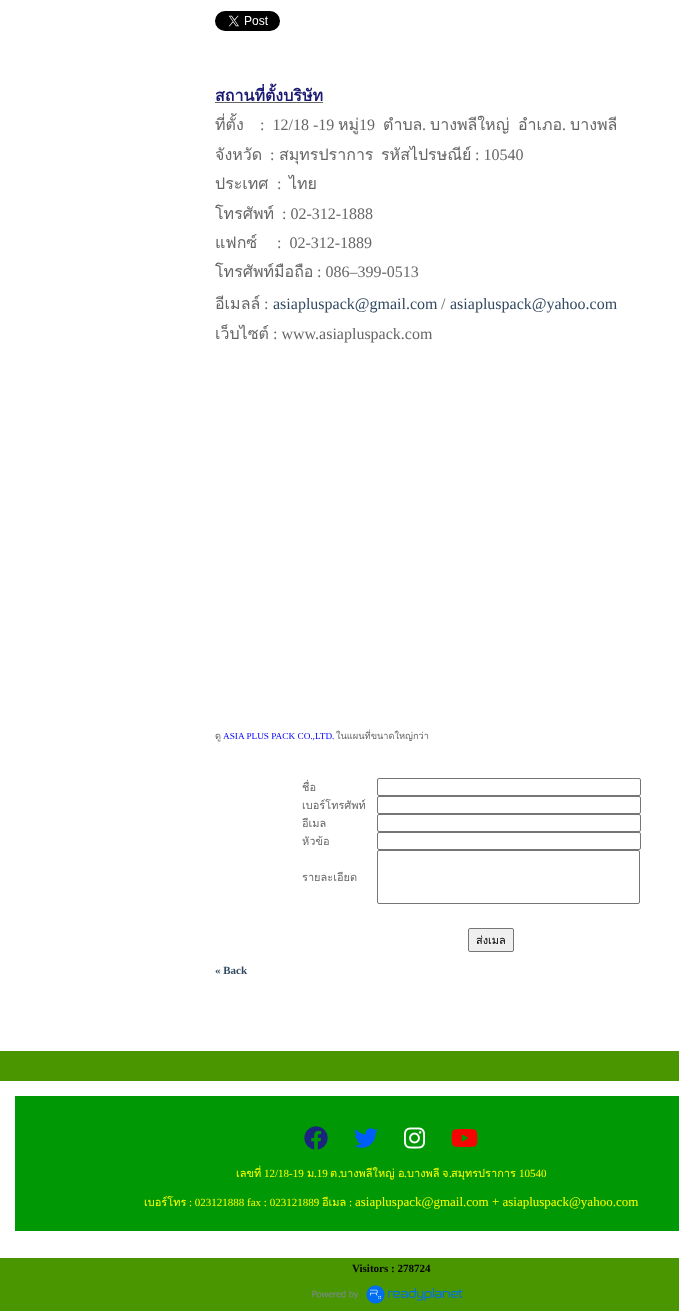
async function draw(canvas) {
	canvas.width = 679;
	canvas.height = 1311;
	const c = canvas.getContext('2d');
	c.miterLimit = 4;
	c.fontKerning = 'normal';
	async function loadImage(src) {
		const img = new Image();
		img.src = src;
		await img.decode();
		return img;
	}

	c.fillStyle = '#499600';
	c.fillRect(0, 0, 679, 1311);
	c.fillStyle = '#fff';
	c.fillRect(0, 0, 679, 1051);
	c.drawImage(await loadImage('img1.png'), 215, 11, 65, 20);
	c.font = 'bold 16px Loma';
	c.fillStyle = '#191970';
	c.fillText('สถานที่ตั้งบริษัท', 215, 101);
	c.fillStyle = '#666';
	c.fillRect(215, 102, 108, 1);
	c.font = '16px Loma';
	c.fillText('ที่ตั้ง', 215, 130);
	c.font = '16px Liberation Serif';
	c.fillText(':  12/18 -19', 260, 130);
	c.font = '16px Loma';
	c.fillText('หมู่', 338, 130);
	c.font = '16px Liberation Serif';
	c.fillText('19', 359, 130);
	c.font = '16px Loma';
	c.fillText('ตำบล', 383, 130);
	c.font = '16px Liberation Serif';
	c.fillText('.', 422, 130);
	c.font = '16px Loma';
	c.fillText('บางพลีใหญ่', 430, 130);
	c.fillText('อำเภอ', 518, 130);
	c.font = '16px Liberation Serif';
	c.fillText('.', 562, 130);
	c.font = '16px Loma';
	c.fillText('บางพลี', 570, 130);
	c.fillText('จังหวัด', 215, 160);
	c.font = '16px Liberation Serif';
	c.fillText(':', 270, 160);
	c.font = '16px Loma';
	c.fillText('สมุทรปราการ', 279, 160);
	c.fillText('รหัสไปรษณีย์', 381, 160);
	c.font = '16px Liberation Serif';
	c.fillText(': 10540', 475, 160);
	c.font = '16px Loma';
	c.fillText('ประเทศ', 215, 189);
	c.font = '16px Liberation Serif';
	c.fillText(':', 277, 189);
	c.font = '16px Loma';
	c.fillText('ไทย', 289, 189);
	c.fillText('โทรศัพท์', 215, 219);
	c.font = '16px Liberation Serif';
	c.fillText(': 02-312-1888', 282, 219);
	c.font = '16px Loma';
	c.fillText('แฟกซ์', 215, 248);
	c.font = '16px Liberation Serif';
	c.fillText(':  02-312-1889', 277, 248);
	c.font = '16px Loma';
	c.fillText('โทรศัพท์มือถือ', 215, 277);
	c.font = '16px Liberation Serif';
	c.fillText(': 086–399-0513', 317, 277);
	c.font = '16px Loma';
	c.fillText('อีเมลล์', 215, 309);
	c.font = '16px Liberation Serif';
	c.fillText(':', 264, 309);
	c.fillStyle = '#324962';
	c.fillText('asiapluspack@gmail.com', 273, 309);
	c.fillStyle = '#666';
	c.fillText('/', 441, 309);
	c.fillStyle = '#324962';
	c.fillText('asiapluspack@yahoo.com', 450, 309);
	c.font = '16px Loma';
	c.fillStyle = '#666';
	c.fillText('เว็บไซต์', 215, 339);
	c.font = '16px Liberation Serif';
	c.fillText(': www.asiapluspack.com', 273, 339);
	c.font = '9.25px Loma';
	c.fillText('ดู', 215, 739);
	c.font = '9.25px Liberation Serif';
	c.fillStyle = '#00f';
	c.fillText('ASIA PLUS PACK CO.,LTD.', 223, 739);
	c.font = '9.25px Loma';
	c.fillStyle = '#666';
	c.fillText('ในแผนที่ขนาดใหญ่กว่า', 336, 739);
	c.font = '11px Loma';
	c.fillText('ชื่อ', 302, 791);
	c.beginPath();
	c.roundRect(377.5, 778.5, 263, 17, 1.5);
	c.strokeStyle = '#767676';
	c.stroke();
	c.fillText('เบอร์โทรศัพท์', 302, 809);
	c.beginPath();
	c.roundRect(377.5, 796.5, 263, 17, 1.5);
	c.stroke();
	c.fillText('อีเมล', 302, 827);
	c.beginPath();
	c.roundRect(377.5, 814.5, 263, 17, 1.5);
	c.stroke();
	c.fillText('หัวข้อ', 302, 845);
	c.beginPath();
	c.roundRect(377.5, 832.5, 263, 17, 1.5);
	c.stroke();
	c.fillText('รายละเอียด', 302, 881);
	c.beginPath();
	c.roundRect(377.5, 850.5, 262, 53, 1.5);
	c.stroke();
	c.fillStyle = '#efefef';
	c.beginPath();
	c.roundRect(468.5, 928.5, 45, 23, 1.5);
	c.fill();
	c.stroke();
	c.fillStyle = '#000';
	c.fillText('ส่งเมล', 476, 944);
	c.font = 'bold 11px Liberation Serif';
	c.fillStyle = '#324962';
	c.fillText('« Back', 215, 974);
	c.fillStyle = '#fff';
	c.fillRect(0, 1081, 679, 177);
	c.fillStyle = '#009804';
	c.fillRect(15, 1096, 664, 135);
	c.drawImage(await loadImage('img2.png'), 304, 1126, 24, 24);
	c.drawImage(await loadImage('img3.png'), 354, 1128, 24, 20);
	c.drawImage(await loadImage('img4.png'), 404, 1127, 21, 22);
	c.drawImage(await loadImage('img5.png'), 451, 1129, 27, 18);
	c.font = '11px Loma';
	c.fillStyle = '#ff0';
	c.fillText('เลขที่', 236, 1177);
	c.font = '11px Liberation Serif';
	c.fillText('12/18-19', 264, 1177);
	c.font = '11px Loma';
	c.fillText('ม', 307, 1177);
	c.font = '11px Liberation Serif';
	c.fillText('.19', 314, 1177);
	c.font = '11px Loma';
	c.fillText('ต', 330, 1177);
	c.font = '11px Liberation Serif';
	c.fillText('.', 338, 1177);
	c.font = '11px Loma';
	c.fillText('บางพลีใหญ่', 340, 1177);
	c.fillText('อ', 398, 1177);
	c.font = '11px Liberation Serif';
	c.fillText('.', 404, 1177);
	c.font = '11px Loma';
	c.fillText('บางพลี', 407, 1177);
	c.fillText('จ', 442, 1177);
	c.font = '11px Liberation Serif';
	c.fillText('.', 449, 1177);
	c.font = '11px Loma';
	c.fillText('สมุทรปราการ', 451, 1177);
	c.font = '11px Liberation Serif';
	c.fillText('10540', 519, 1177);
	c.font = '11px Loma';
	c.fillText('เบอร์โทร', 144, 1206);
	c.font = '11px Liberation Serif';
	c.fillText(': 023121888 fax : 023121889', 189, 1206);
	c.font = '11px Loma';
	c.fillText('อีเมล', 322, 1206);
	c.font = '11px Liberation Serif';
	c.fillText(':', 349, 1206);
	c.font = '13px Liberation Serif';
	c.fillText('asiapluspack@gmail.com + asiapluspack@yahoo.com', 355, 1206);
	c.font = 'bold 11px Liberation Serif';
	c.fillStyle = '#000';
	c.fillText('Visitors : 278724', 352, 1272);
	c.drawImage(await loadImage('img6.png'), 312, 1285, 151, 19);
}

draw(document.querySelector('canvas'));
